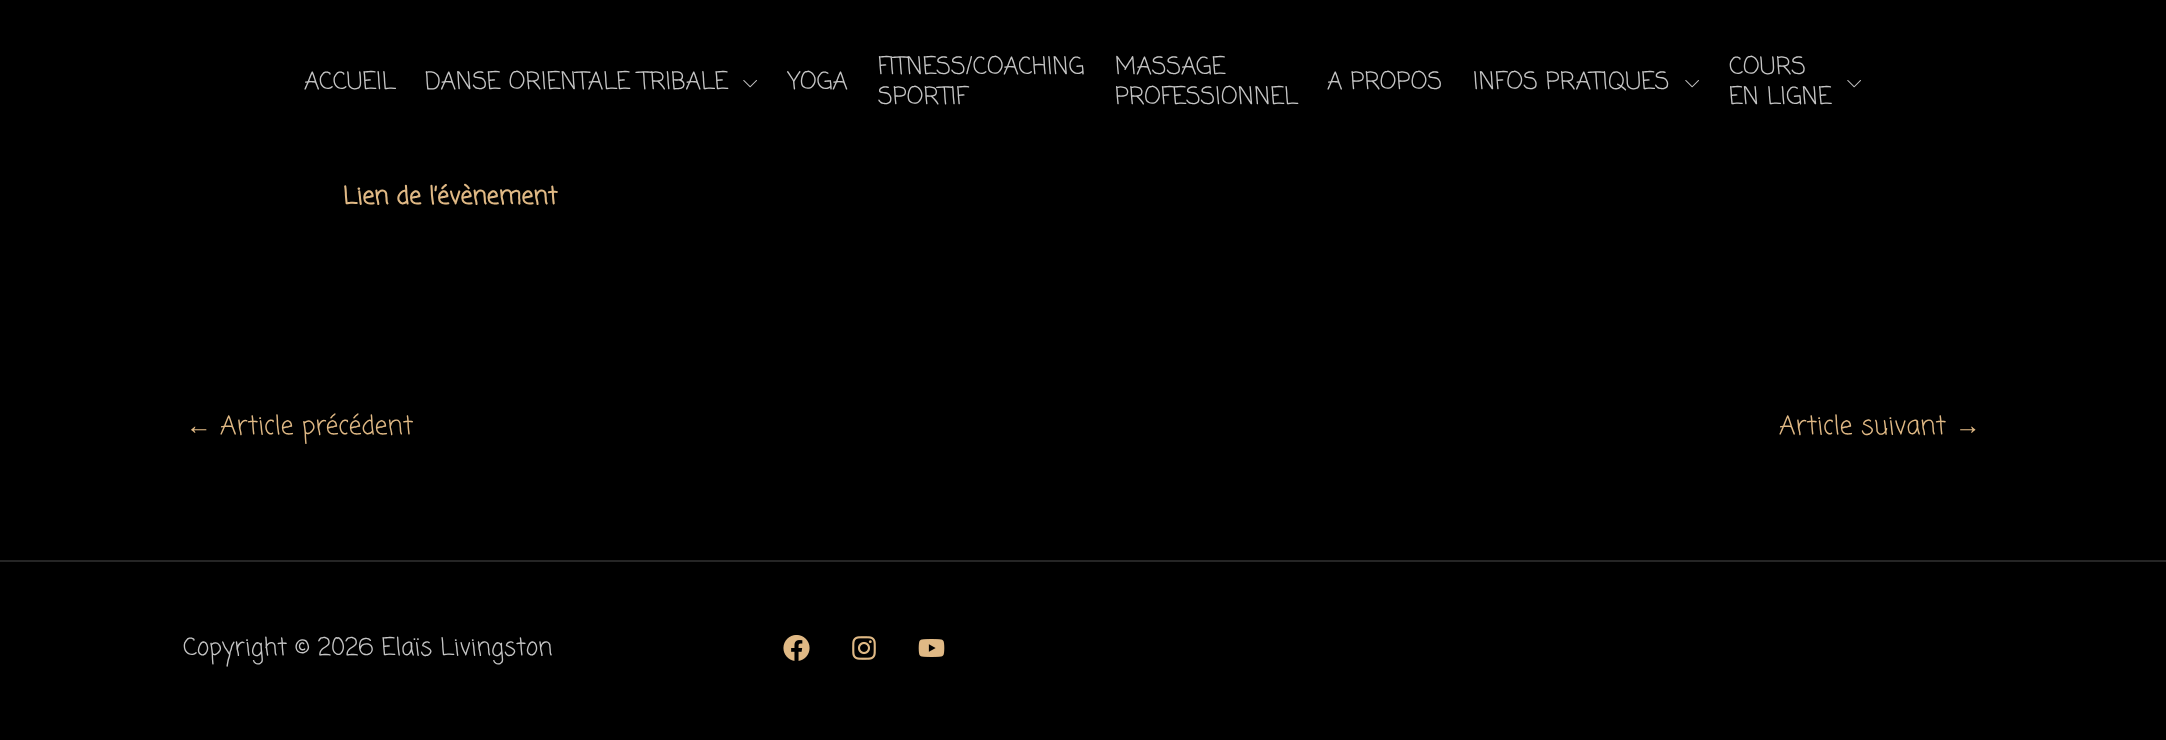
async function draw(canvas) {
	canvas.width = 2166;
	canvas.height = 740;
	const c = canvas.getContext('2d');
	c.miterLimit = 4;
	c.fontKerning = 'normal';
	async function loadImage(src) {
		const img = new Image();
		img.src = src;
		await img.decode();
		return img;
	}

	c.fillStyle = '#000';
	c.fillRect(0, 0, 2166, 740);
	c.font = '24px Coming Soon';
	c.fillStyle = '#c5c5c5';
	c.fillText('ACCUEIL', 304, 89);
	c.fillText('DANSE ORIENTALE TRIBALE', 425, 89);
	c.drawImage(await loadImage('img1.png'), 743, 80, 14, 8);
	for (const [text, x, y] of [
		['YOGA', 788, 89],
		['FITNESS/COACHING', 878, 74],
		['SPORTIF', 878, 104],
		['MASSAGE', 1115, 74],
		['PROFESSIONNEL', 1115, 104],
		['A PROPOS', 1327, 89],
		['INFOS PRATIQUES', 1473, 89],
	]) {
		c.fillText(text, x, y);
	}
	c.drawImage(await loadImage('img1.png'), 1685, 80, 14, 8);
	c.fillText('COURS', 1729, 74);
	c.drawImage(await loadImage('img1.png'), 1847, 80, 14, 8);
	c.fillText('EN LIGNE', 1729, 104);
	c.font = 'bold 24px Coming Soon';
	c.fillStyle = '#e0b985';
	c.fillText('Lien de l’évènement', 343, 204);
	c.font = '25.5px Liberation Sans';
	c.fillText('←', 186, 434);
	c.font = '25.5px Coming Soon';
	c.fillText('Article précédent', 220, 434);
	c.fillText('Article suivant', 1779, 434);
	c.font = '25.5px Liberation Sans';
	c.fillText('→', 1955, 434);
	c.fillStyle = '#252525';
	c.fillRect(0, 560, 2166, 2);
	c.font = '24px Coming Soon';
	c.fillStyle = '#c5c5c5';
	c.fillText('Copyright © 2026 Elaïs Livingston', 183, 655);
	c.drawImage(await loadImage('img2.png'), 783, 635, 27, 26);
	c.drawImage(await loadImage('img3.png'), 852, 636, 24, 24);
	c.drawImage(await loadImage('img4.png'), 918, 639, 27, 18);
}

draw(document.querySelector('canvas'));
